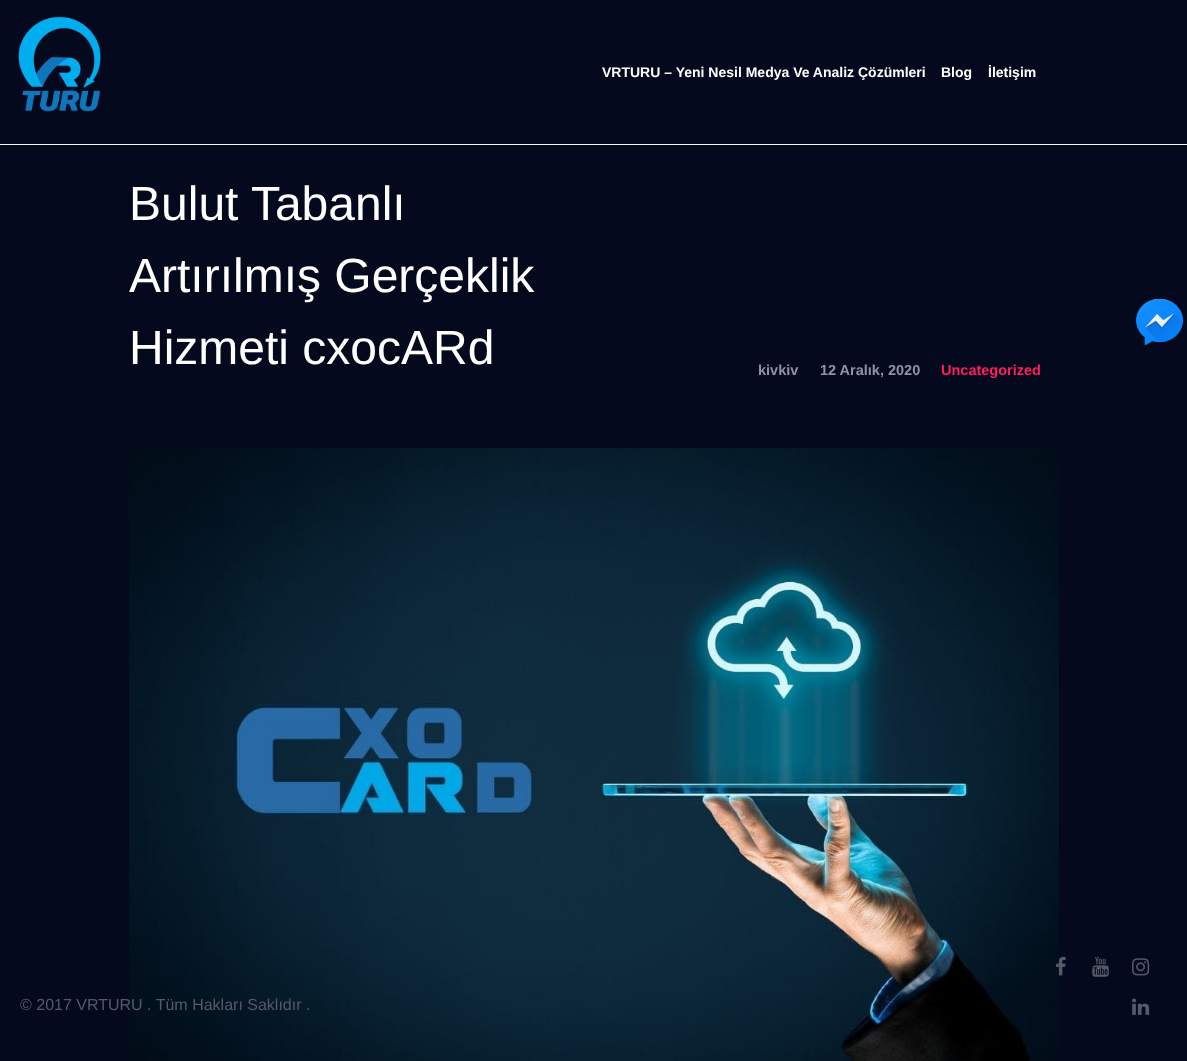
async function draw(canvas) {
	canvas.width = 1187;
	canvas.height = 1061;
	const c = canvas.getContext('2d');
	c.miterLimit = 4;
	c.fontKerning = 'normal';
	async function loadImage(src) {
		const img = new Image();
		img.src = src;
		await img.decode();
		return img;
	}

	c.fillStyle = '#05091d';
	c.fillRect(0, 0, 1187, 1061);
	c.fillStyle = '#f9f9f9';
	c.fillRect(0, 144, 1187, 1);
	c.drawImage(await loadImage('img1.png'), 18, 16, 83, 96);
	c.font = 'bold 14px Liberation Sans';
	c.fillStyle = '#fff';
	for (const [text, x, y] of [
		['VRTURU – Yeni Nesil Medya Ve Analiz Çözümleri', 602, 77],
		['Blog', 941, 77],
		['İletişim', 988, 77],
	]) {
		c.fillText(text, x, y);
	}
	c.font = '48px Liberation Sans';
	for (const [text, x, y] of [
		['Bulut Tabanlı', 129, 220],
		['Artırılmış Gerçeklik', 129, 292],
		['Hizmeti cxocARd', 129, 364],
	]) {
		c.fillText(text, x, y);
	}
	c.font = 'bold 14.5px Liberation Sans';
	c.fillStyle = '#9192a4';
	c.fillText('kivkiv', 758, 375);
	c.fillText('12 Aralık, 2020', 820, 375);
	c.fillStyle = '#ff1d5d';
	c.fillText('Uncategorized', 941, 375);
	c.drawImage(await loadImage('img2.png'), 129, 448, 930, 613);
	c.drawImage(await loadImage('img3.png'), 1136, 298, 47, 48);
	c.font = '16px Liberation Sans';
	c.fillStyle = '#565967';
	c.fillText('© 2017 VRTURU . Tüm Hakları Saklıdır .', 20, 1010);
	c.drawImage(await loadImage('img4.png'), 1056, 956, 10, 20);
	c.drawImage(await loadImage('img5.png'), 1092, 956, 17, 21);
	c.drawImage(await loadImage('img6.png'), 1132, 958, 18, 18);
	c.drawImage(await loadImage('img7.png'), 1132, 998, 18, 17);
}

draw(document.querySelector('canvas'));
